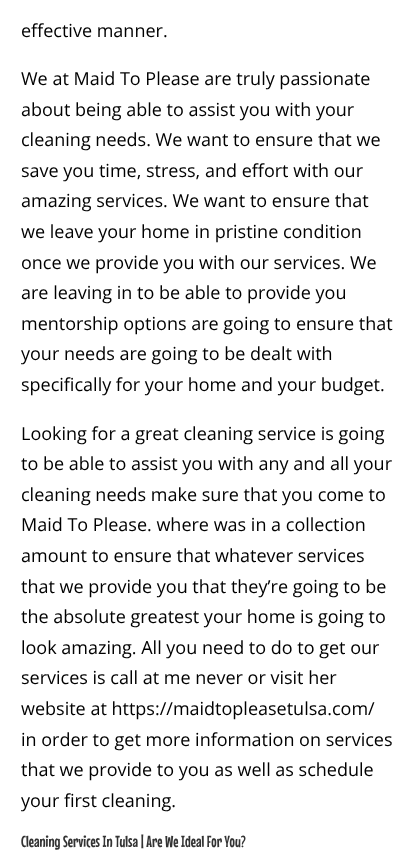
async function draw(canvas) {
	canvas.width = 414;
	canvas.height = 862;
	const c = canvas.getContext('2d');
	c.miterLimit = 4;
	c.fontKerning = 'normal';

	c.fillStyle = '#fff';
	c.fillRect(0, 0, 414, 862);
	c.font = '18px Open Sans';
	c.fillStyle = '#000';
	for (const [text, x, y] of [
		['effective manner.', 21, 37],
		['We at Maid To Please are truly passionate', 21, 85],
		['about being able to assist you with your', 21, 116],
		['cleaning needs. We want to ensure that we', 21, 146],
		['save you time, stress, and effort with our', 21, 177],
		['amazing services. We want to ensure that', 21, 207],
		['we leave your home in pristine condition', 21, 238],
		['once we provide you with our services. We', 21, 269],
		['are leaving in to be able to provide you', 21, 299],
		['mentorship options are going to ensure that', 21, 330],
		['your needs are going to be dealt with', 21, 360],
		['specifically for your home and your budget.', 21, 391],
		['Looking for a great cleaning service is going', 21, 440],
		['to be able to assist you with any and all your', 21, 470],
		['cleaning needs make sure that you come to', 21, 501],
		['Maid To Please. where was in a collection', 21, 531],
		['amount to ensure that whatever services', 21, 562],
		['that we provide you that they’re going to be', 21, 593],
		['the absolute greatest your home is going to', 21, 623],
		['look amazing. All you need to do to get our', 21, 654],
		['services is call at me never or visit her', 21, 684],
		['website at https://maidtopleasetulsa.com/', 21, 715],
		['in order to get more information on services', 21, 746],
		['that we provide to you as well as schedule', 21, 776],
		['your first cleaning.', 21, 807],
	]) {
		c.fillText(text, x, y);
	}
	c.font = '16px Mouse Memoirs';
	c.fillStyle = '#333';
	c.fillText('Cleaning Services In Tulsa | Are We Ideal For You?', 21, 847);
}

draw(document.querySelector('canvas'));
